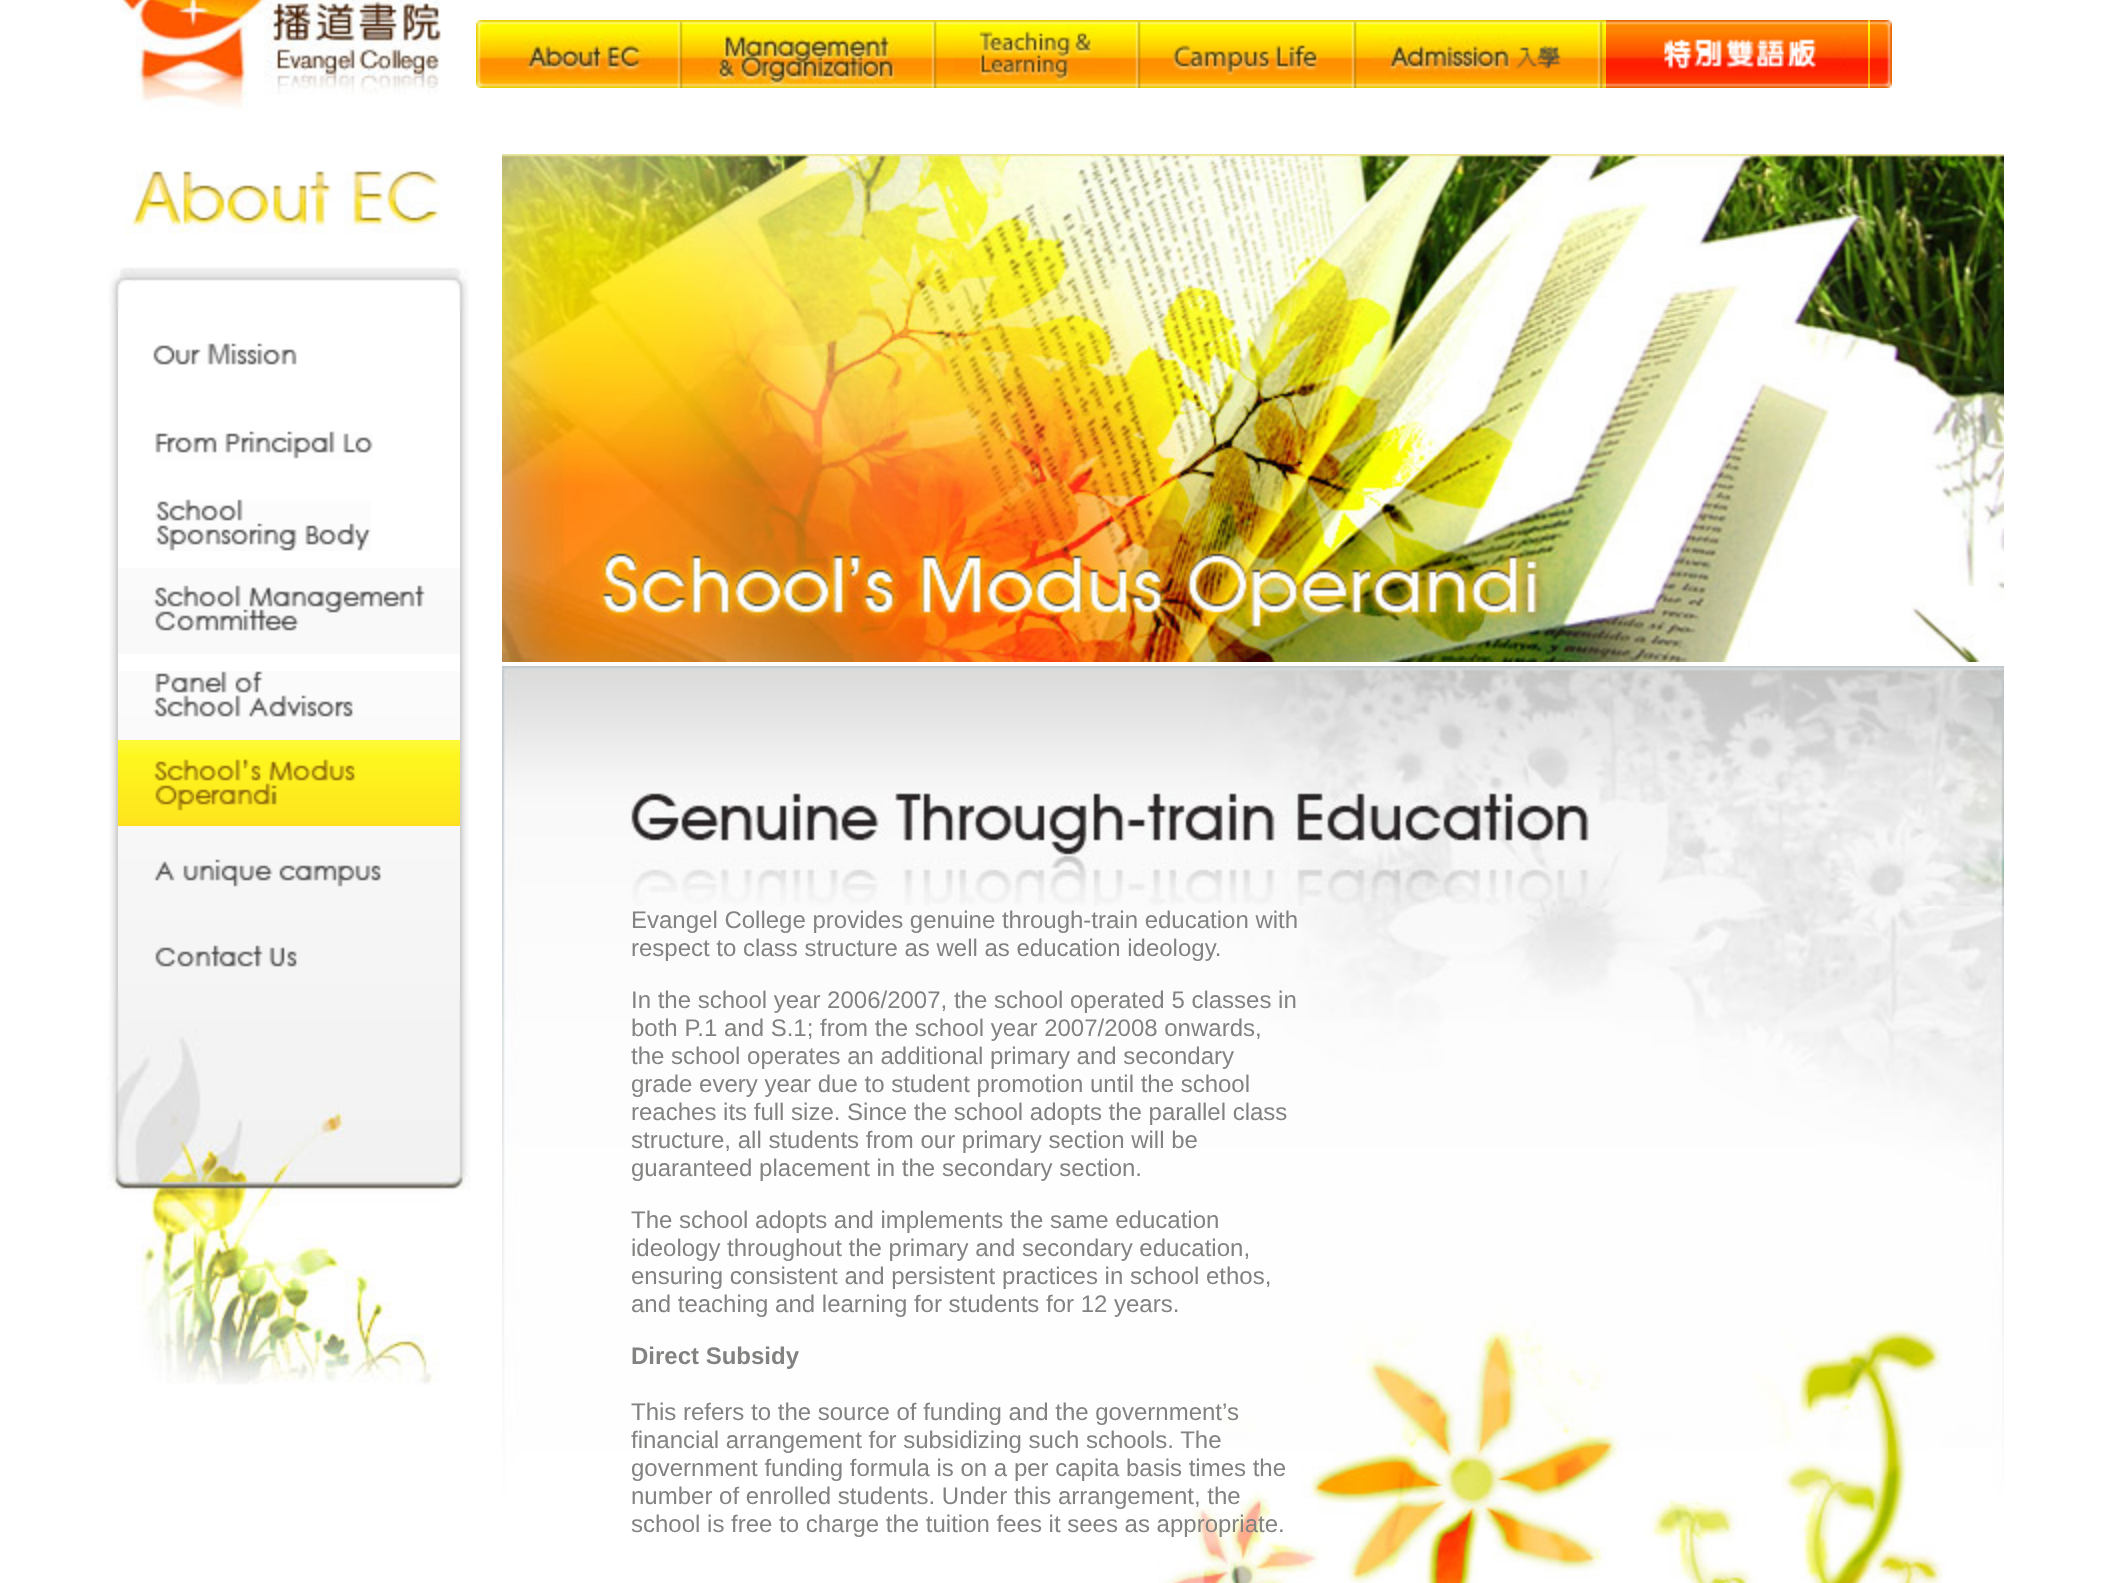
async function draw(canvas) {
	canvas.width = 2106;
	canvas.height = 1583;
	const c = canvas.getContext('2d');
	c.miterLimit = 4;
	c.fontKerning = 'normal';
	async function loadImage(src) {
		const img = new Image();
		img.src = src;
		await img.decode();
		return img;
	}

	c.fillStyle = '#fff';
	c.fillRect(0, 0, 2106, 1583);
	c.drawImage(await loadImage('img1.png'), 120, 0, 321, 110);
	c.drawImage(await loadImage('img2.png'), 476, 20, 18, 68);
	c.drawImage(await loadImage('img3.png'), 494, 20, 1376, 68);
	c.drawImage(await loadImage('img4.png'), 494, 28, 182, 54);
	c.drawImage(await loadImage('img5.png'), 677, 21, 6, 67);
	c.drawImage(await loadImage('img6.png'), 688, 28, 240, 59);
	c.drawImage(await loadImage('img5.png'), 931, 21, 6, 67);
	c.drawImage(await loadImage('img7.png'), 954, 22, 166, 60);
	c.drawImage(await loadImage('img5.png'), 1135, 21, 6, 67);
	c.drawImage(await loadImage('img8.png'), 1171, 45, 148, 31);
	c.drawImage(await loadImage('img5.png'), 1351, 21, 6, 67);
	c.drawImage(await loadImage('img9.png'), 1372, 28, 210, 52);
	c.drawImage(await loadImage('img5.png'), 1597, 21, 6, 67);
	c.drawImage(await loadImage('img10.png'), 1606, 20, 262, 68);
	c.drawImage(await loadImage('img11.png'), 1870, 20, 22, 68);
	c.drawImage(await loadImage('img12.png'), 125, 169, 315, 65);
	c.drawImage(await loadImage('img13.png'), 108, 267, 361, 43);
	c.drawImage(await loadImage('img14.png'), 109, 310, 9, 688);
	c.drawImage(await loadImage('img15.png'), 153, 343, 144, 22);
	c.drawImage(await loadImage('img16.png'), 155, 431, 218, 28);
	c.drawImage(await loadImage('img17.png'), 155, 499, 216, 52);
	c.drawImage(await loadImage('img18.png'), 118, 568, 342, 86);
	c.drawImage(await loadImage('img19.png'), 118, 671, 342, 69);
	c.drawImage(await loadImage('img20.png'), 118, 740, 342, 86);
	c.drawImage(await loadImage('img21.png'), 118, 826, 342, 86);
	c.drawImage(await loadImage('img22.png'), 118, 912, 342, 86);
	c.drawImage(await loadImage('img23.png'), 460, 310, 9, 688);
	c.drawImage(await loadImage('img24.png'), 106, 998, 365, 387);
	c.drawImage(await loadImage('img25.png'), 502, 154, 1502, 508);
	c.drawImage(await loadImage('img26.png'), 502, 666, 1502, 240);
	c.drawImage(await loadImage('img27.png'), 502, 906, 1502, 677);
	c.font = '24px Liberation Sans';
	c.fillStyle = '#828281';
	for (const [text, x, y] of [
		['Evangel College provides genuine through-train education with', 631, 928],
		['respect to class structure as well as education ideology.', 631, 956],
		['In the school year 2006/2007, the school operated 5 classes in', 631, 1008],
		['both P.1 and S.1; from the school year 2007/2008 onwards,', 631, 1036],
		['the school operates an additional primary and secondary', 631, 1064],
		['grade every year due to student promotion until the school', 631, 1092],
		['reaches its full size. Since the school adopts the parallel class', 631, 1120],
		['structure, all students from our primary section will be', 631, 1148],
		['guaranteed placement in the secondary section.', 631, 1176],
		['The school adopts and implements the same education', 631, 1228],
		['ideology throughout the primary and secondary education,', 631, 1256],
		['ensuring consistent and persistent practices in school ethos,', 631, 1284],
		['and teaching and learning for students for 12 years.', 631, 1312],
	]) {
		c.fillText(text, x, y);
	}
	c.font = 'bold 24px Liberation Sans';
	c.fillText('Direct Subsidy', 631, 1364);
	c.font = '24px Liberation Sans';
	for (const [text, x, y] of [
		['This refers to the source of funding and the government’s', 631, 1420],
		['financial arrangement for subsidizing such schools. The', 631, 1448],
		['government funding formula is on a per capita basis times the', 631, 1476],
		['number of enrolled students. Under this arrangement, the', 631, 1504],
		['school is free to charge the tuition fees it sees as appropriate.', 631, 1532],
	]) {
		c.fillText(text, x, y);
	}
}

draw(document.querySelector('canvas'));
